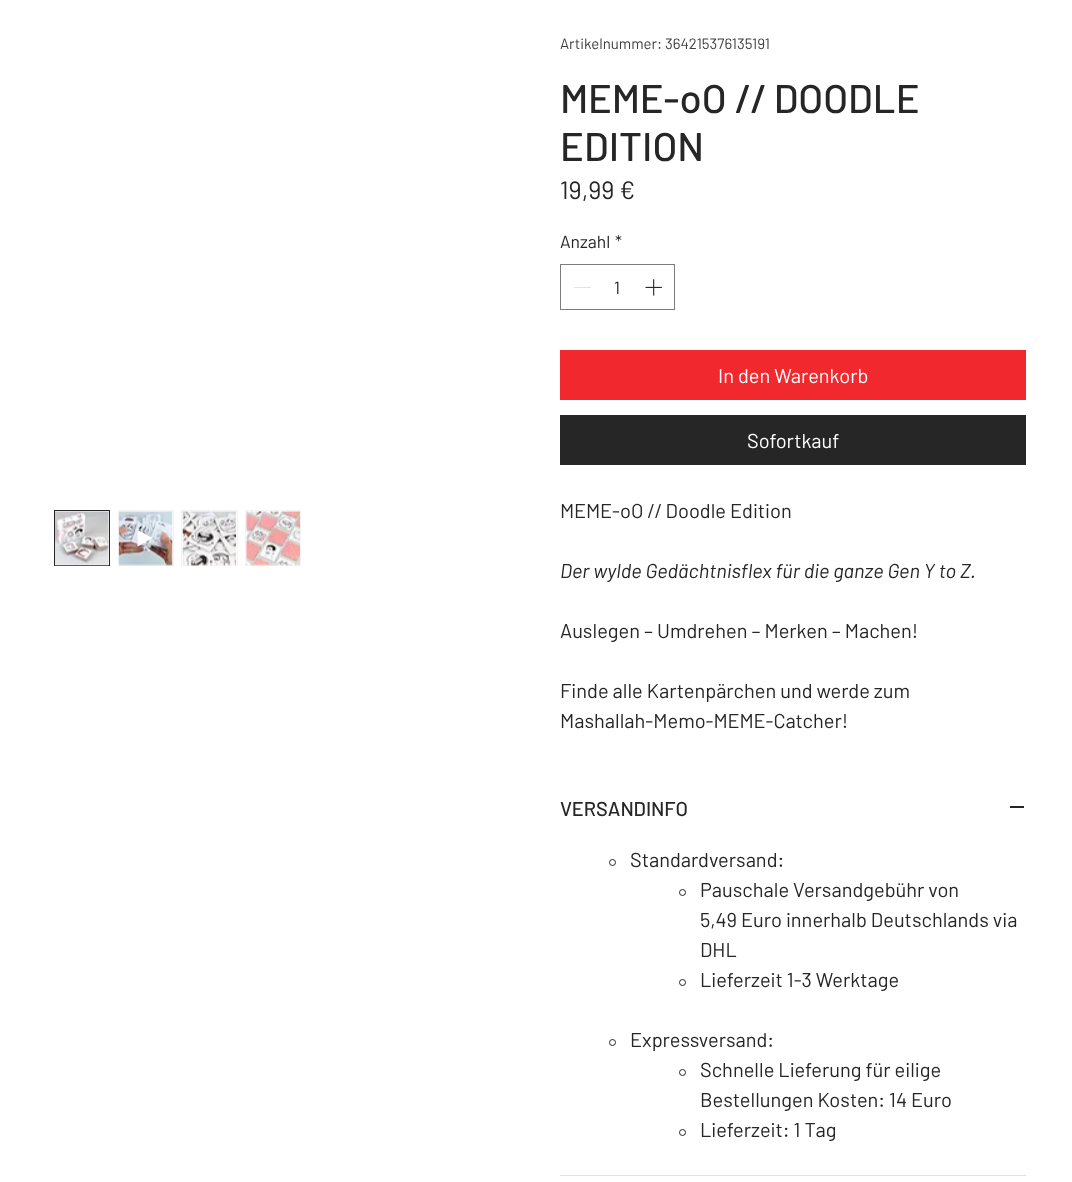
async function draw(canvas) {
	canvas.width = 1072;
	canvas.height = 1182;
	const c = canvas.getContext('2d');
	c.miterLimit = 4;
	c.fontKerning = 'normal';
	async function loadImage(src) {
		const img = new Image();
		img.src = src;
		await img.decode();
		return img;
	}

	c.fillStyle = '#fff';
	c.fillRect(0, 0, 1072, 1182);
	c.strokeStyle = '#262626';
	c.strokeRect(54.5, 510.5, 55, 55);
	c.drawImage(await loadImage('img1.png'), 55, 511, 54, 55);
	c.strokeStyle = '#f3f3f3';
	c.strokeRect(118.5, 510.5, 55, 55);
	c.drawImage(await loadImage('img2.png'), 118, 511, 55, 55);
	c.beginPath();
	c.moveTo(137.5, 530);
	c.lineTo(137.5, 546.5);
	c.lineTo(152.5, 538);
	c.closePath();
	c.fill();
	c.strokeRect(181.5, 510.5, 56, 55);
	c.drawImage(await loadImage('img3.png'), 182, 511, 55, 55);
	c.strokeRect(245.5, 510.5, 55, 55);
	c.drawImage(await loadImage('img4.png'), 246, 511, 54, 55);
	c.font = '15px Barlow';
	c.fillStyle = '#3e3e3e';
	c.fillText('Artikelnummer: 364215376135191', 560, 49);
	c.font = '500 40px Barlow';
	c.fillStyle = '#262626';
	c.fillText('MEME-oO // DOODLE', 560, 113);
	c.fillText('EDITION', 560, 161);
	c.font = '25px Barlow';
	c.fillText('19,99 €', 560, 199);
	c.font = '17.5px Barlow';
	c.fillText('Anzahl', 560, 248);
	c.fillText('*', 615, 248);
	c.strokeStyle = '#7d7d7d';
	c.strokeRect(560.5, 264.5, 114, 45);
	c.fillStyle = '#e3e3e3';
	c.fillRect(574, 287, 17, 1);
	c.fillStyle = '#262626';
	c.fillText('1', 614, 294);
	c.drawImage(await loadImage('img5.png'), 645, 279, 17, 17);
	c.fillStyle = '#f1282d';
	c.fillRect(560, 350, 466, 50);
	c.font = '20px Barlow';
	c.fillStyle = '#fff';
	c.fillText('In den Warenkorb', 718, 383);
	c.fillStyle = '#262626';
	c.fillRect(560, 415, 466, 50);
	c.fillStyle = '#fff';
	c.fillText('Sofortkauf', 747, 448);
	c.fillStyle = '#262626';
	c.fillText('MEME-oO // Doodle Edition', 560, 518);
	c.font = 'italic 20px Barlow';
	c.fillText('Der wylde Gedächtnisflex für die ganze Gen Y to Z.', 560, 578);
	c.font = '20px Barlow';
	for (const [text, x, y] of [
		['Auslegen – Umdrehen – Merken – Machen!', 560, 638],
		['Finde alle Kartenpärchen und werde zum', 560, 698],
		['Mashallah-Memo-MEME-Catcher!', 560, 728],
	]) {
		c.fillText(text, x, y);
	}
	c.fillStyle = '#dfdfdf';
	c.fillRect(560, 1175, 466, 1);
	c.font = '500 20px Barlow';
	c.fillStyle = '#262626';
	c.fillText('VERSANDINFO', 560, 816);
	c.fillRect(1010, 806, 14, 2);
	c.beginPath();
	c.arc(612.5, 862.5, 3, 0, 2 * Math.PI);
	c.strokeStyle = '#262626';
	c.stroke();
	c.font = '20px Barlow';
	c.fillText('Standardversand:', 630, 867);
	c.beginPath();
	c.arc(682.5, 892.5, 3, 0, 2 * Math.PI);
	c.stroke();
	for (const [text, x, y] of [
		['Pauschale Versandgebühr von', 700, 897],
		['5,49 Euro innerhalb Deutschlands via', 700, 927],
		['DHL', 700, 957],
	]) {
		c.fillText(text, x, y);
	}
	c.beginPath();
	c.arc(682.5, 982.5, 3, 0, 2 * Math.PI);
	c.stroke();
	c.fillText('Lieferzeit 1-3 Werktage', 700, 987);
	c.beginPath();
	c.arc(612.5, 1042.5, 3, 0, 2 * Math.PI);
	c.stroke();
	c.fillText('Expressversand:', 630, 1047);
	c.beginPath();
	c.arc(682.5, 1072.5, 3, 0, 2 * Math.PI);
	c.stroke();
	c.fillText('Schnelle Lieferung für eilige', 700, 1077);
	c.fillText('Bestellungen Kosten: 14 Euro', 700, 1107);
	c.beginPath();
	c.arc(682.5, 1132.5, 3, 0, 2 * Math.PI);
	c.stroke();
	c.fillText('Lieferzeit: 1 Tag', 700, 1137);
}

draw(document.querySelector('canvas'));
